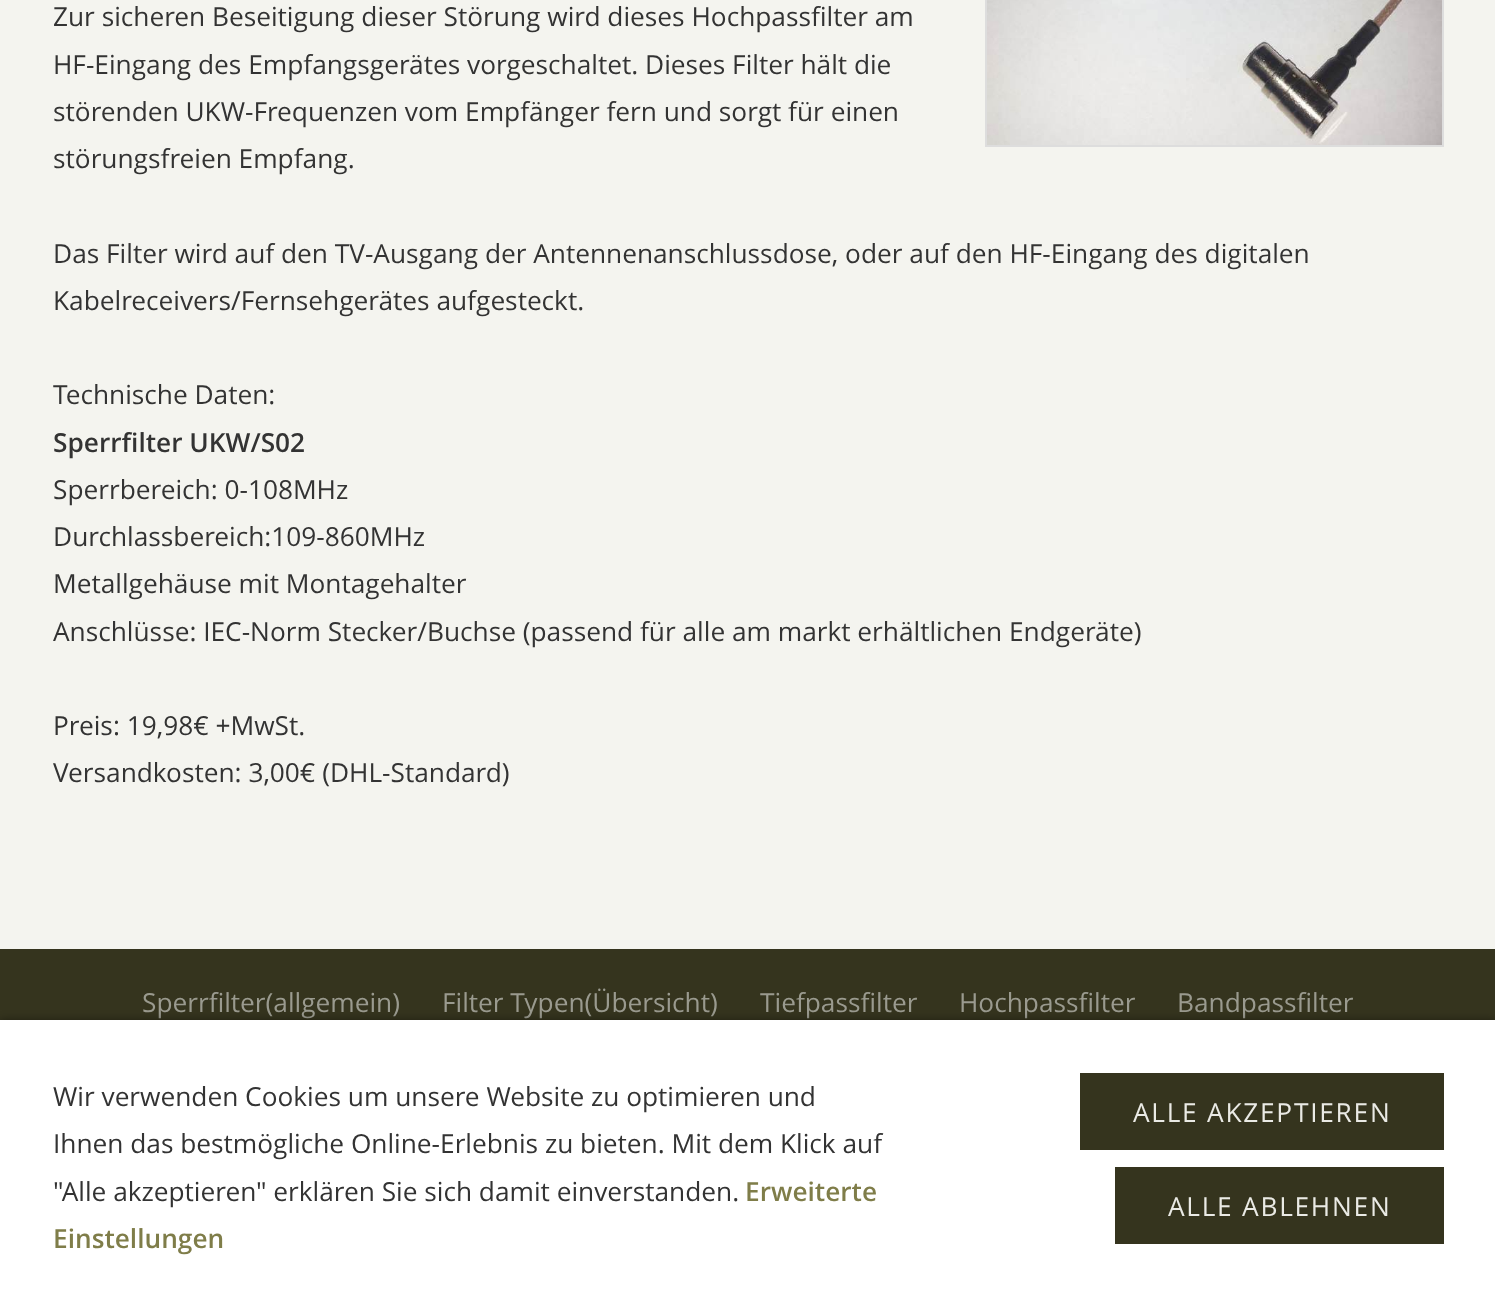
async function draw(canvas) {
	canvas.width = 1495;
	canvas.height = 1314;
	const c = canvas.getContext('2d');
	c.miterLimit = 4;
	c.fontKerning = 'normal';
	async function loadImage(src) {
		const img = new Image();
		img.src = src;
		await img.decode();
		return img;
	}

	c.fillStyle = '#35341e';
	c.fillRect(0, 0, 1495, 1314);
	c.fillStyle = '#f4f4ef';
	c.fillRect(0, 0, 1495, 949);
	c.strokeStyle = '#ddd';
	c.lineWidth = 2;
	c.strokeRect(986, -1, 457, 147);
	c.drawImage(await loadImage('img1.png'), 987, 0, 455, 145);
	c.font = '26.25px Open Sans';
	c.fillStyle = '#333';
	for (const [text, x, y] of [
		['Zur sicheren Beseitigung dieser Störung wird dieses Hochpassfilter am', 53, 26],
		['HF-Eingang des Empfangsgerätes vorgeschaltet. Dieses Filter hält die', 53, 74],
		['störenden UKW-Frequenzen vom Empfänger fern und sorgt für einen', 53, 121],
		['störungsfreien Empfang.', 53, 168],
		['Das Filter wird auf den TV-Ausgang der Antennenanschlussdose, oder auf den HF-Eingang des digitalen', 53, 263],
		['Kabelreceivers/Fernsehgerätes aufgesteckt.', 53, 310],
		['Technische Daten:', 53, 404],
	]) {
		c.fillText(text, x, y);
	}
	c.font = '600 26.25px Open Sans';
	c.fillText('Sperrfilter UKW/S02', 53, 452);
	c.font = '26.25px Open Sans';
	for (const [text, x, y] of [
		['Sperrbereich: 0-108MHz', 53, 499],
		['Durchlassbereich:109-860MHz', 53, 546],
		['Metallgehäuse mit Montagehalter', 53, 593],
		['Anschlüsse: IEC-Norm Stecker/Buchse (passend für alle am markt erhältlichen Endgeräte)', 53, 641],
		['Preis: 19,98€ +MwSt.', 53, 735],
		['Versandkosten: 3,00€ (DHL-Standard)', 53, 782],
	]) {
		c.fillText(text, x, y);
	}
	c.fillStyle = '#9a9a8f';
	for (const [text, x, y] of [
		['Sperrfilter(allgemein)', 142, 1012],
		['Filter Typen(Übersicht)', 442, 1012],
		['Tiefpassfilter', 760, 1012],
		['Hochpassfilter', 959, 1012],
		['Bandpassfilter', 1177, 1012],
	]) {
		c.fillText(text, x, y);
	}
	c.fillStyle = '#00000066';
	c.filter = 'blur(4.5px)';
	c.beginPath();
	c.rect(0, 1020, 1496, 294);
	c.fill();
	c.filter = 'none';
	c.fillStyle = '#fff';
	c.fillRect(0, 1020, 1495, 294);
	c.fillStyle = '#333';
	for (const [text, x, y] of [
		['Wir verwenden Cookies um unsere Website zu optimieren und', 53, 1106],
		['Ihnen das bestmögliche Online-Erlebnis zu bieten. Mit dem Klick auf', 53, 1153],
		['"Alle akzeptieren" erklären Sie sich damit einverstanden.', 53, 1201],
	]) {
		c.fillText(text, x, y);
	}
	c.font = '600 26.25px Open Sans';
	c.fillStyle = '#7f7d49';
	c.fillText('Erweiterte', 745, 1201);
	c.fillText('Einstellungen', 53, 1248);
	c.fillStyle = '#35341e';
	c.fillRect(1080, 1073, 364, 77);
	c.letterSpacing = '1.75px';
	c.font = '26.25px Open Sans';
	c.fillStyle = '#eaeae5';
	c.fillText('ALLE AKZEPTIEREN', 1133, 1122);
	c.fillStyle = '#35341e';
	c.fillRect(1115, 1167, 329, 77);
	c.fillStyle = '#eaeae5';
	c.fillText('ALLE ABLEHNEN', 1168, 1216);
}

draw(document.querySelector('canvas'));
